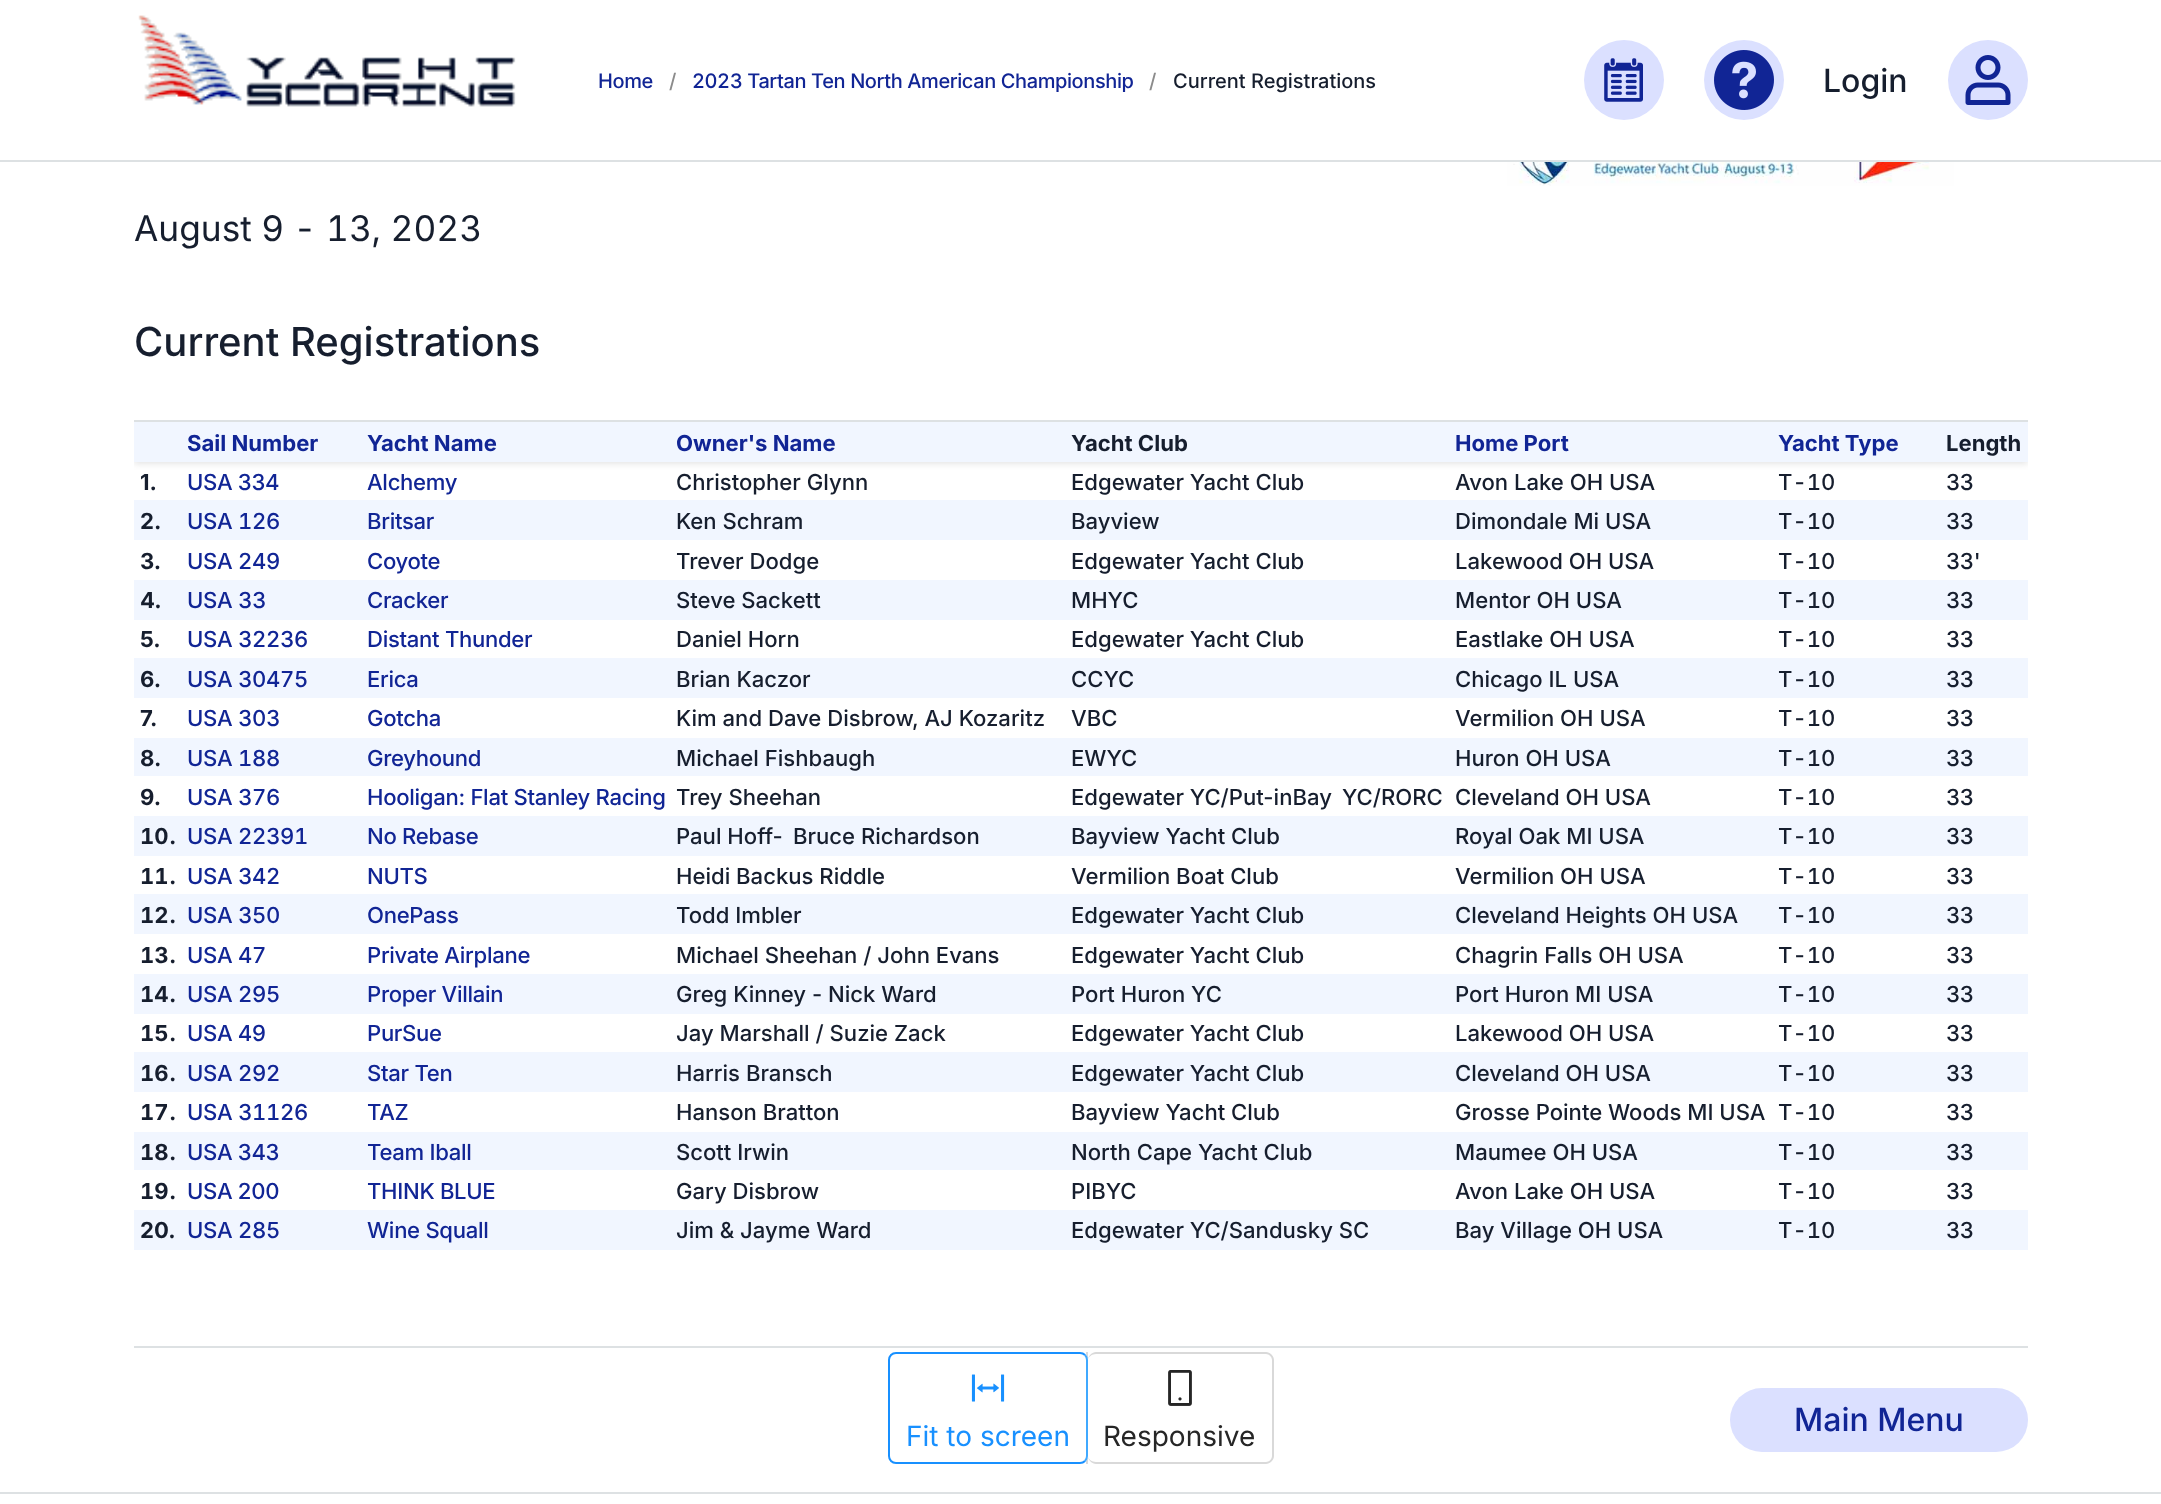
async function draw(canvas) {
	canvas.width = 2161;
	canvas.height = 1504;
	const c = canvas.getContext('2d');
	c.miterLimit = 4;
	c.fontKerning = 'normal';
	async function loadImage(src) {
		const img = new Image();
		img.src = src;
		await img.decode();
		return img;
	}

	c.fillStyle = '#fff';
	c.fillRect(0, 0, 2161, 1504);
	c.fillStyle = '#dde1e3';
	c.fillRect(0, 160, 2161, 2);
	c.drawImage(await loadImage('img1.png'), 138, 15, 378, 92);
	c.letterSpacing = '-0.4px';
	c.font = '500 20px Inter';
	c.fillStyle = '#112595';
	c.fillText('Home', 598, 88);
	c.letterSpacing = '0px';
	c.fillStyle = '#8c8c8c';
	c.fillText('/', 669, 88);
	c.letterSpacing = '-0.4px';
	c.font = '500 20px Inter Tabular';
	c.fillStyle = '#112595';
	c.fillText('2023 Tartan Ten North American Championship', 692, 88);
	c.letterSpacing = '0px';
	c.font = '500 20px Inter';
	c.fillStyle = '#8c8c8c';
	c.fillText('/', 1149, 88);
	c.fillStyle = '#161e2e';
	c.fillText('Current Registrations', 1173, 88);
	c.fillStyle = '#dbe0ff';
	c.beginPath();
	c.arc(1624, 80, 40, 0, 2 * Math.PI);
	c.fill();
	c.drawImage(await loadImage('img2.png'), 1604, 58, 39, 44);
	c.beginPath();
	c.arc(1744, 80, 40, 0, 2 * Math.PI);
	c.fill();
	c.drawImage(await loadImage('img3.png'), 1714, 50, 60, 60);
	c.font = '500 32px Inter';
	c.fillStyle = '#161e2e';
	c.fillText('Login', 1823, 92);
	c.fillStyle = '#dbe0ff';
	c.beginPath();
	c.arc(1988, 80, 40, 0, 2 * Math.PI);
	c.fill();
	c.drawImage(await loadImage('img4.png'), 1965, 55, 46, 50);
	c.drawImage(await loadImage('img5.png'), 1507, 162, 447, 24);
	c.font = '35.25px Inter Tabular';
	c.fillStyle = '#161e2e';
	c.fillText('August 9 - 13, 2023', 134, 241);
	c.font = '500 40px Inter';
	c.fillText('Current Registrations', 134, 356);
	c.fillStyle = '#dde1e3';
	c.fillRect(134, 420, 1894, 2);
	c.save();
	c.beginPath();
	c.rect(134, 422, 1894, 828);
	c.clip();
	c.fillStyle = '#0000001a';
	c.filter = 'blur(3px)';
	c.beginPath();
	c.rect(134, 426, 1894, 38);
	c.fill();
	c.filter = 'none';
	c.restore();
	c.fillStyle = '#f1f6ff';
	c.fillRect(134, 422, 1894, 40);
	c.font = 'bold 22.1px Inter';
	c.fillStyle = '#112595';
	for (const [text, x, y] of [
		['Sail Number', 187, 451],
		['Yacht Name', 367, 451],
		['Owner\'s Name', 676, 451],
	]) {
		c.fillText(text, x, y);
	}
	c.fillStyle = '#161e2e';
	c.fillText('Yacht Club', 1071, 451);
	c.fillStyle = '#112595';
	c.fillText('Home Port', 1455, 451);
	c.fillText('Yacht Type', 1778, 451);
	c.fillStyle = '#161e2e';
	c.fillText('Length', 1946, 451);
	c.fillText('1.', 140, 490);
	c.letterSpacing = '-0.3px';
	c.font = '500 22.1px Inter';
	c.fillStyle = '#112595';
	c.fillText('USA 334', 187, 490);
	c.fillText('Alchemy', 367, 490);
	c.letterSpacing = '0px';
	c.fillStyle = '#161e2e';
	for (const [text, x, y] of [
		['Christopher Glynn', 676, 490],
		['Edgewater Yacht Club', 1071, 490],
		['Avon Lake OH USA', 1455, 490],
	]) {
		c.fillText(text, x, y);
	}
	c.font = '500 22.1px Inter Tabular';
	c.fillText('T-10', 1778, 490);
	c.font = '500 22.1px Inter';
	c.fillText('33', 1946, 490);
	c.fillStyle = '#f1f6ff';
	c.fillRect(134, 500, 1894, 40);
	c.font = 'bold 22.1px Inter';
	c.fillStyle = '#161e2e';
	c.fillText('2.', 140, 529);
	c.letterSpacing = '-0.3px';
	c.font = '500 22.1px Inter Tabular';
	c.fillStyle = '#112595';
	c.fillText('USA 126', 187, 529);
	c.font = '500 22.1px Inter';
	c.fillText('Britsar', 367, 529);
	c.letterSpacing = '0px';
	c.fillStyle = '#161e2e';
	for (const [text, x, y] of [
		['Ken Schram', 676, 529],
		['Bayview', 1071, 529],
		['Dimondale Mi USA', 1455, 529],
	]) {
		c.fillText(text, x, y);
	}
	c.font = '500 22.1px Inter Tabular';
	c.fillText('T-10', 1778, 529);
	c.font = '500 22.1px Inter';
	c.fillText('33', 1946, 529);
	c.font = 'bold 22.1px Inter';
	c.fillText('3.', 140, 569);
	c.letterSpacing = '-0.3px';
	c.font = '500 22.1px Inter Tabular';
	c.fillStyle = '#112595';
	c.fillText('USA 249', 187, 569);
	c.font = '500 22.1px Inter';
	c.fillText('Coyote', 367, 569);
	c.letterSpacing = '0px';
	c.fillStyle = '#161e2e';
	for (const [text, x, y] of [
		['Trever Dodge', 676, 569],
		['Edgewater Yacht Club', 1071, 569],
		['Lakewood OH USA', 1455, 569],
	]) {
		c.fillText(text, x, y);
	}
	c.font = '500 22.1px Inter Tabular';
	c.fillText('T-10', 1778, 569);
	c.font = '500 22.1px Inter';
	c.fillText('33\'', 1946, 569);
	c.fillStyle = '#f1f6ff';
	c.fillRect(134, 580, 1894, 40);
	c.font = 'bold 22.1px Inter';
	c.fillStyle = '#161e2e';
	c.fillText('4.', 140, 608);
	c.letterSpacing = '-0.3px';
	c.font = '500 22.1px Inter Tabular';
	c.fillStyle = '#112595';
	c.fillText('USA 33', 187, 608);
	c.font = '500 22.1px Inter';
	c.fillText('Cracker', 367, 608);
	c.letterSpacing = '0px';
	c.fillStyle = '#161e2e';
	for (const [text, x, y] of [
		['Steve Sackett', 676, 608],
		['MHYC', 1071, 608],
		['Mentor OH USA', 1455, 608],
	]) {
		c.fillText(text, x, y);
	}
	c.font = '500 22.1px Inter Tabular';
	c.fillText('T-10', 1778, 608);
	c.font = '500 22.1px Inter';
	c.fillText('33', 1946, 608);
	c.font = 'bold 22.1px Inter';
	c.fillText('5.', 140, 647);
	c.letterSpacing = '-0.3px';
	c.font = '500 22.1px Inter Tabular';
	c.fillStyle = '#112595';
	c.fillText('USA 32236', 187, 647);
	c.font = '500 22.1px Inter';
	c.fillText('Distant Thunder', 367, 647);
	c.letterSpacing = '0px';
	c.fillStyle = '#161e2e';
	for (const [text, x, y] of [
		['Daniel Horn', 676, 647],
		['Edgewater Yacht Club', 1071, 647],
		['Eastlake OH USA', 1455, 647],
	]) {
		c.fillText(text, x, y);
	}
	c.font = '500 22.1px Inter Tabular';
	c.fillText('T-10', 1778, 647);
	c.font = '500 22.1px Inter';
	c.fillText('33', 1946, 647);
	c.fillStyle = '#f1f6ff';
	c.fillRect(134, 658, 1894, 40);
	c.font = 'bold 22.1px Inter';
	c.fillStyle = '#161e2e';
	c.fillText('6.', 140, 687);
	c.letterSpacing = '-0.3px';
	c.font = '500 22.1px Inter Tabular';
	c.fillStyle = '#112595';
	c.fillText('USA 30475', 187, 687);
	c.font = '500 22.1px Inter';
	c.fillText('Erica', 367, 687);
	c.letterSpacing = '0px';
	c.fillStyle = '#161e2e';
	for (const [text, x, y] of [
		['Brian Kaczor', 676, 687],
		['CCYC', 1071, 687],
		['Chicago IL USA', 1455, 687],
	]) {
		c.fillText(text, x, y);
	}
	c.font = '500 22.1px Inter Tabular';
	c.fillText('T-10', 1778, 687);
	c.font = '500 22.1px Inter';
	c.fillText('33', 1946, 687);
	c.font = 'bold 22.1px Inter';
	c.fillText('7.', 140, 726);
	c.letterSpacing = '-0.3px';
	c.font = '500 22.1px Inter Tabular';
	c.fillStyle = '#112595';
	c.fillText('USA 303', 187, 726);
	c.font = '500 22.1px Inter';
	c.fillText('Gotcha', 367, 726);
	c.letterSpacing = '0px';
	c.fillStyle = '#161e2e';
	for (const [text, x, y] of [
		['Kim and Dave Disbrow, AJ Kozaritz', 676, 726],
		['VBC', 1071, 726],
		['Vermilion OH USA', 1455, 726],
	]) {
		c.fillText(text, x, y);
	}
	c.font = '500 22.1px Inter Tabular';
	c.fillText('T-10', 1778, 726);
	c.font = '500 22.1px Inter';
	c.fillText('33', 1946, 726);
	c.fillStyle = '#f1f6ff';
	c.fillRect(134, 738, 1894, 38);
	c.font = 'bold 22.1px Inter';
	c.fillStyle = '#161e2e';
	c.fillText('8.', 140, 766);
	c.letterSpacing = '-0.3px';
	c.font = '500 22.1px Inter Tabular';
	c.fillStyle = '#112595';
	c.fillText('USA 188', 187, 766);
	c.font = '500 22.1px Inter';
	c.fillText('Greyhound', 367, 766);
	c.letterSpacing = '0px';
	c.fillStyle = '#161e2e';
	for (const [text, x, y] of [
		['Michael Fishbaugh', 676, 766],
		['EWYC', 1071, 766],
		['Huron OH USA', 1455, 766],
	]) {
		c.fillText(text, x, y);
	}
	c.font = '500 22.1px Inter Tabular';
	c.fillText('T-10', 1778, 766);
	c.font = '500 22.1px Inter';
	c.fillText('33', 1946, 766);
	c.font = 'bold 22.1px Inter';
	c.fillText('9.', 140, 805);
	c.letterSpacing = '-0.3px';
	c.font = '500 22.1px Inter Tabular';
	c.fillStyle = '#112595';
	c.fillText('USA 376', 187, 805);
	c.font = '500 22.1px Inter';
	c.fillText('Hooligan: Flat Stanley Racing', 367, 805);
	c.letterSpacing = '0px';
	c.fillStyle = '#161e2e';
	for (const [text, x, y] of [
		['Trey Sheehan', 676, 805],
		['Edgewater YC/Put-inBay', 1071, 805],
		['YC/RORC', 1342, 805],
		['Cleveland OH USA', 1455, 805],
	]) {
		c.fillText(text, x, y);
	}
	c.font = '500 22.1px Inter Tabular';
	c.fillText('T-10', 1778, 805);
	c.font = '500 22.1px Inter';
	c.fillText('33', 1946, 805);
	c.fillStyle = '#f1f6ff';
	c.fillRect(134, 816, 1894, 40);
	c.font = 'bold 22.1px Inter Tabular';
	c.fillStyle = '#161e2e';
	c.fillText('10', 140, 844);
	c.font = 'bold 22.1px Inter';
	c.fillText('.', 169, 844);
	c.letterSpacing = '-0.3px';
	c.font = '500 22.1px Inter Tabular';
	c.fillStyle = '#112595';
	c.fillText('USA 22391', 187, 844);
	c.font = '500 22.1px Inter';
	c.fillText('No Rebase', 367, 844);
	c.letterSpacing = '0px';
	c.fillStyle = '#161e2e';
	for (const [text, x, y] of [
		['Paul Hoff-', 676, 844],
		['Bruce Richardson', 793, 844],
		['Bayview Yacht Club', 1071, 844],
		['Royal Oak MI USA', 1455, 844],
	]) {
		c.fillText(text, x, y);
	}
	c.font = '500 22.1px Inter Tabular';
	c.fillText('T-10', 1778, 844);
	c.font = '500 22.1px Inter';
	c.fillText('33', 1946, 844);
	c.font = 'bold 22.1px Inter Tabular';
	c.fillText('11', 140, 884);
	c.font = 'bold 22.1px Inter';
	c.fillText('.', 169, 884);
	c.letterSpacing = '-0.3px';
	c.font = '500 22.1px Inter Tabular';
	c.fillStyle = '#112595';
	c.fillText('USA 342', 187, 884);
	c.font = '500 22.1px Inter';
	c.fillText('NUTS', 367, 884);
	c.letterSpacing = '0px';
	c.fillStyle = '#161e2e';
	for (const [text, x, y] of [
		['Heidi Backus Riddle', 676, 884],
		['Vermilion Boat Club', 1071, 884],
		['Vermilion OH USA', 1455, 884],
	]) {
		c.fillText(text, x, y);
	}
	c.font = '500 22.1px Inter Tabular';
	c.fillText('T-10', 1778, 884);
	c.font = '500 22.1px Inter';
	c.fillText('33', 1946, 884);
	c.fillStyle = '#f1f6ff';
	c.fillRect(134, 894, 1894, 40);
	c.font = 'bold 22.1px Inter Tabular';
	c.fillStyle = '#161e2e';
	c.fillText('12', 140, 923);
	c.font = 'bold 22.1px Inter';
	c.fillText('.', 169, 923);
	c.letterSpacing = '-0.3px';
	c.font = '500 22.1px Inter Tabular';
	c.fillStyle = '#112595';
	c.fillText('USA 350', 187, 923);
	c.font = '500 22.1px Inter';
	c.fillText('OnePass', 367, 923);
	c.letterSpacing = '0px';
	c.fillStyle = '#161e2e';
	for (const [text, x, y] of [
		['Todd Imbler', 676, 923],
		['Edgewater Yacht Club', 1071, 923],
		['Cleveland Heights OH USA', 1455, 923],
	]) {
		c.fillText(text, x, y);
	}
	c.font = '500 22.1px Inter Tabular';
	c.fillText('T-10', 1778, 923);
	c.font = '500 22.1px Inter';
	c.fillText('33', 1946, 923);
	c.font = 'bold 22.1px Inter Tabular';
	c.fillText('13', 140, 963);
	c.font = 'bold 22.1px Inter';
	c.fillText('.', 169, 963);
	c.letterSpacing = '-0.3px';
	c.font = '500 22.1px Inter Tabular';
	c.fillStyle = '#112595';
	c.fillText('USA 47', 187, 963);
	c.font = '500 22.1px Inter';
	c.fillText('Private Airplane', 367, 963);
	c.letterSpacing = '0px';
	c.fillStyle = '#161e2e';
	for (const [text, x, y] of [
		['Michael Sheehan / John Evans', 676, 963],
		['Edgewater Yacht Club', 1071, 963],
		['Chagrin Falls OH USA', 1455, 963],
	]) {
		c.fillText(text, x, y);
	}
	c.font = '500 22.1px Inter Tabular';
	c.fillText('T-10', 1778, 963);
	c.font = '500 22.1px Inter';
	c.fillText('33', 1946, 963);
	c.fillStyle = '#f1f6ff';
	c.fillRect(134, 974, 1894, 40);
	c.font = 'bold 22.1px Inter Tabular';
	c.fillStyle = '#161e2e';
	c.fillText('14', 140, 1002);
	c.font = 'bold 22.1px Inter';
	c.fillText('.', 169, 1002);
	c.letterSpacing = '-0.3px';
	c.font = '500 22.1px Inter Tabular';
	c.fillStyle = '#112595';
	c.fillText('USA 295', 187, 1002);
	c.font = '500 22.1px Inter';
	c.fillText('Proper Villain', 367, 1002);
	c.letterSpacing = '0px';
	c.fillStyle = '#161e2e';
	for (const [text, x, y] of [
		['Greg Kinney - Nick Ward', 676, 1002],
		['Port Huron YC', 1071, 1002],
		['Port Huron MI USA', 1455, 1002],
	]) {
		c.fillText(text, x, y);
	}
	c.font = '500 22.1px Inter Tabular';
	c.fillText('T-10', 1778, 1002);
	c.font = '500 22.1px Inter';
	c.fillText('33', 1946, 1002);
	c.font = 'bold 22.1px Inter Tabular';
	c.fillText('15', 140, 1041);
	c.font = 'bold 22.1px Inter';
	c.fillText('.', 169, 1041);
	c.letterSpacing = '-0.3px';
	c.font = '500 22.1px Inter';
	c.fillStyle = '#112595';
	c.fillText('USA 49', 187, 1041);
	c.fillText('PurSue', 367, 1041);
	c.letterSpacing = '0px';
	c.fillStyle = '#161e2e';
	for (const [text, x, y] of [
		['Jay Marshall / Suzie Zack', 676, 1041],
		['Edgewater Yacht Club', 1071, 1041],
		['Lakewood OH USA', 1455, 1041],
	]) {
		c.fillText(text, x, y);
	}
	c.font = '500 22.1px Inter Tabular';
	c.fillText('T-10', 1778, 1041);
	c.font = '500 22.1px Inter';
	c.fillText('33', 1946, 1041);
	c.fillStyle = '#f1f6ff';
	c.fillRect(134, 1052, 1894, 40);
	c.font = 'bold 22.1px Inter Tabular';
	c.fillStyle = '#161e2e';
	c.fillText('16', 140, 1081);
	c.font = 'bold 22.1px Inter';
	c.fillText('.', 169, 1081);
	c.letterSpacing = '-0.3px';
	c.font = '500 22.1px Inter Tabular';
	c.fillStyle = '#112595';
	c.fillText('USA 292', 187, 1081);
	c.font = '500 22.1px Inter';
	c.fillText('Star Ten', 367, 1081);
	c.letterSpacing = '0px';
	c.fillStyle = '#161e2e';
	for (const [text, x, y] of [
		['Harris Bransch', 676, 1081],
		['Edgewater Yacht Club', 1071, 1081],
		['Cleveland OH USA', 1455, 1081],
	]) {
		c.fillText(text, x, y);
	}
	c.font = '500 22.1px Inter Tabular';
	c.fillText('T-10', 1778, 1081);
	c.font = '500 22.1px Inter';
	c.fillText('33', 1946, 1081);
	c.font = 'bold 22.1px Inter Tabular';
	c.fillText('17', 140, 1120);
	c.font = 'bold 22.1px Inter';
	c.fillText('.', 169, 1120);
	c.letterSpacing = '-0.3px';
	c.font = '500 22.1px Inter Tabular';
	c.fillStyle = '#112595';
	c.fillText('USA 31126', 187, 1120);
	c.font = '500 22.1px Inter';
	c.fillText('TAZ', 367, 1120);
	c.letterSpacing = '0px';
	c.fillStyle = '#161e2e';
	for (const [text, x, y] of [
		['Hanson Bratton', 676, 1120],
		['Bayview Yacht Club', 1071, 1120],
		['Grosse Pointe Woods MI USA', 1455, 1120],
	]) {
		c.fillText(text, x, y);
	}
	c.font = '500 22.1px Inter Tabular';
	c.fillText('T-10', 1778, 1120);
	c.font = '500 22.1px Inter';
	c.fillText('33', 1946, 1120);
	c.fillStyle = '#f1f6ff';
	c.fillRect(134, 1132, 1894, 38);
	c.font = 'bold 22.1px Inter Tabular';
	c.fillStyle = '#161e2e';
	c.fillText('18', 140, 1160);
	c.font = 'bold 22.1px Inter';
	c.fillText('.', 169, 1160);
	c.letterSpacing = '-0.3px';
	c.font = '500 22.1px Inter';
	c.fillStyle = '#112595';
	c.fillText('USA 343', 187, 1160);
	c.fillText('Team Iball', 367, 1160);
	c.letterSpacing = '0px';
	c.fillStyle = '#161e2e';
	for (const [text, x, y] of [
		['Scott Irwin', 676, 1160],
		['North Cape Yacht Club', 1071, 1160],
		['Maumee OH USA', 1455, 1160],
	]) {
		c.fillText(text, x, y);
	}
	c.font = '500 22.1px Inter Tabular';
	c.fillText('T-10', 1778, 1160);
	c.font = '500 22.1px Inter';
	c.fillText('33', 1946, 1160);
	c.font = 'bold 22.1px Inter Tabular';
	c.fillText('19', 140, 1199);
	c.font = 'bold 22.1px Inter';
	c.fillText('.', 169, 1199);
	c.letterSpacing = '-0.3px';
	c.font = '500 22.1px Inter';
	c.fillStyle = '#112595';
	c.fillText('USA 200', 187, 1199);
	c.fillText('THINK BLUE', 367, 1199);
	c.letterSpacing = '0px';
	c.fillStyle = '#161e2e';
	for (const [text, x, y] of [
		['Gary Disbrow', 676, 1199],
		['PIBYC', 1071, 1199],
		['Avon Lake OH USA', 1455, 1199],
	]) {
		c.fillText(text, x, y);
	}
	c.font = '500 22.1px Inter Tabular';
	c.fillText('T-10', 1778, 1199);
	c.font = '500 22.1px Inter';
	c.fillText('33', 1946, 1199);
	c.fillStyle = '#f1f6ff';
	c.fillRect(134, 1210, 1894, 40);
	c.font = 'bold 22.1px Inter';
	c.fillStyle = '#161e2e';
	c.fillText('20.', 140, 1238);
	c.letterSpacing = '-0.3px';
	c.font = '500 22.1px Inter Tabular';
	c.fillStyle = '#112595';
	c.fillText('USA 285', 187, 1238);
	c.font = '500 22.1px Inter';
	c.fillText('Wine Squall', 367, 1238);
	c.letterSpacing = '0px';
	c.fillStyle = '#161e2e';
	for (const [text, x, y] of [
		['Jim & Jayme Ward', 676, 1238],
		['Edgewater YC/Sandusky SC', 1071, 1238],
		['Bay Village OH USA', 1455, 1238],
	]) {
		c.fillText(text, x, y);
	}
	c.font = '500 22.1px Inter Tabular';
	c.fillText('T-10', 1778, 1238);
	c.font = '500 22.1px Inter';
	c.fillText('33', 1946, 1238);
	c.fillStyle = '#d9d9d9';
	c.fillRect(1086, 1352, 2, 112);
	c.fillStyle = '#fff';
	c.beginPath();
	c.roundRect(888, 1352, 200, 112, 8);
	c.fill();
	c.beginPath();
	c.moveTo(1085, 1355);
	c.bezierCurveTo(1086.5, 1356.5, 1087, 1358, 1087, 1360);
	c.lineTo(1087, 1456);
	c.bezierCurveTo(1087, 1458, 1086.5, 1459.5, 1085, 1461);
	c.strokeStyle = '#40a9ff';
	c.lineWidth = 2;
	c.stroke();
	c.beginPath();
	c.moveTo(1085, 1461);
	c.bezierCurveTo(1083.5, 1462.5, 1082, 1463, 1080, 1463);
	c.lineTo(896, 1463);
	c.bezierCurveTo(894, 1463, 892.5, 1462.5, 891, 1461);
	c.bezierCurveTo(889.5, 1459.5, 889, 1458, 889, 1456);
	c.lineTo(889, 1360);
	c.bezierCurveTo(889, 1358, 889.5, 1356.5, 891, 1355);
	c.bezierCurveTo(892.5, 1353.5, 894, 1353, 896, 1353);
	c.lineTo(1080, 1353);
	c.bezierCurveTo(1082, 1353, 1083.5, 1353.5, 1085, 1355);
	c.strokeStyle = '#1890ff';
	c.stroke();
	c.drawImage(await loadImage('img6.png'), 971, 1374, 34, 28);
	c.font = '28px Inter';
	c.fillStyle = '#1890ff';
	c.fillText('Fit to screen', 906, 1446);
	c.fillStyle = '#d9d9d9';
	c.beginPath();
	c.moveTo(1096, 1352);
	c.lineTo(1266, 1352);
	c.bezierCurveTo(1270, 1352, 1274, 1356, 1274, 1360);
	c.lineTo(1274, 1456);
	c.bezierCurveTo(1274, 1460, 1270, 1464, 1266, 1464);
	c.lineTo(1096, 1464);
	c.bezierCurveTo(1092, 1464, 1088, 1460, 1088, 1456);
	c.lineTo(1088, 1360);
	c.bezierCurveTo(1088, 1356, 1092, 1352, 1096, 1352);
	c.closePath();
	c.moveTo(1096, 1354);
	c.lineTo(1266, 1354);
	c.bezierCurveTo(1269, 1354, 1272, 1357, 1272, 1360);
	c.lineTo(1272, 1456);
	c.bezierCurveTo(1272, 1459, 1269, 1462, 1266, 1462);
	c.lineTo(1096, 1462);
	c.bezierCurveTo(1092, 1462, 1088, 1459, 1088, 1456);
	c.lineTo(1088, 1360);
	c.bezierCurveTo(1088, 1357, 1092, 1354, 1096, 1354);
	c.closePath();
	c.fill('evenodd');
	c.drawImage(await loadImage('img7.png'), 1168, 1370, 24, 36);
	c.fillStyle = '#262626';
	c.fillText('Responsive', 1103, 1446);
	c.fillStyle = '#dde1e3';
	c.fillRect(134, 1346, 1894, 2);
	c.fillStyle = '#dbe0ff';
	c.beginPath();
	c.roundRect(1730, 1388, 298, 64, 32);
	c.fill();
	c.font = '500 32px Inter';
	c.fillStyle = '#112595';
	c.fillText('Main Menu', 1794, 1431);
	c.fillStyle = '#dde1e3';
	c.fillRect(0, 1492, 2161, 2);
}

draw(document.querySelector('canvas'));
